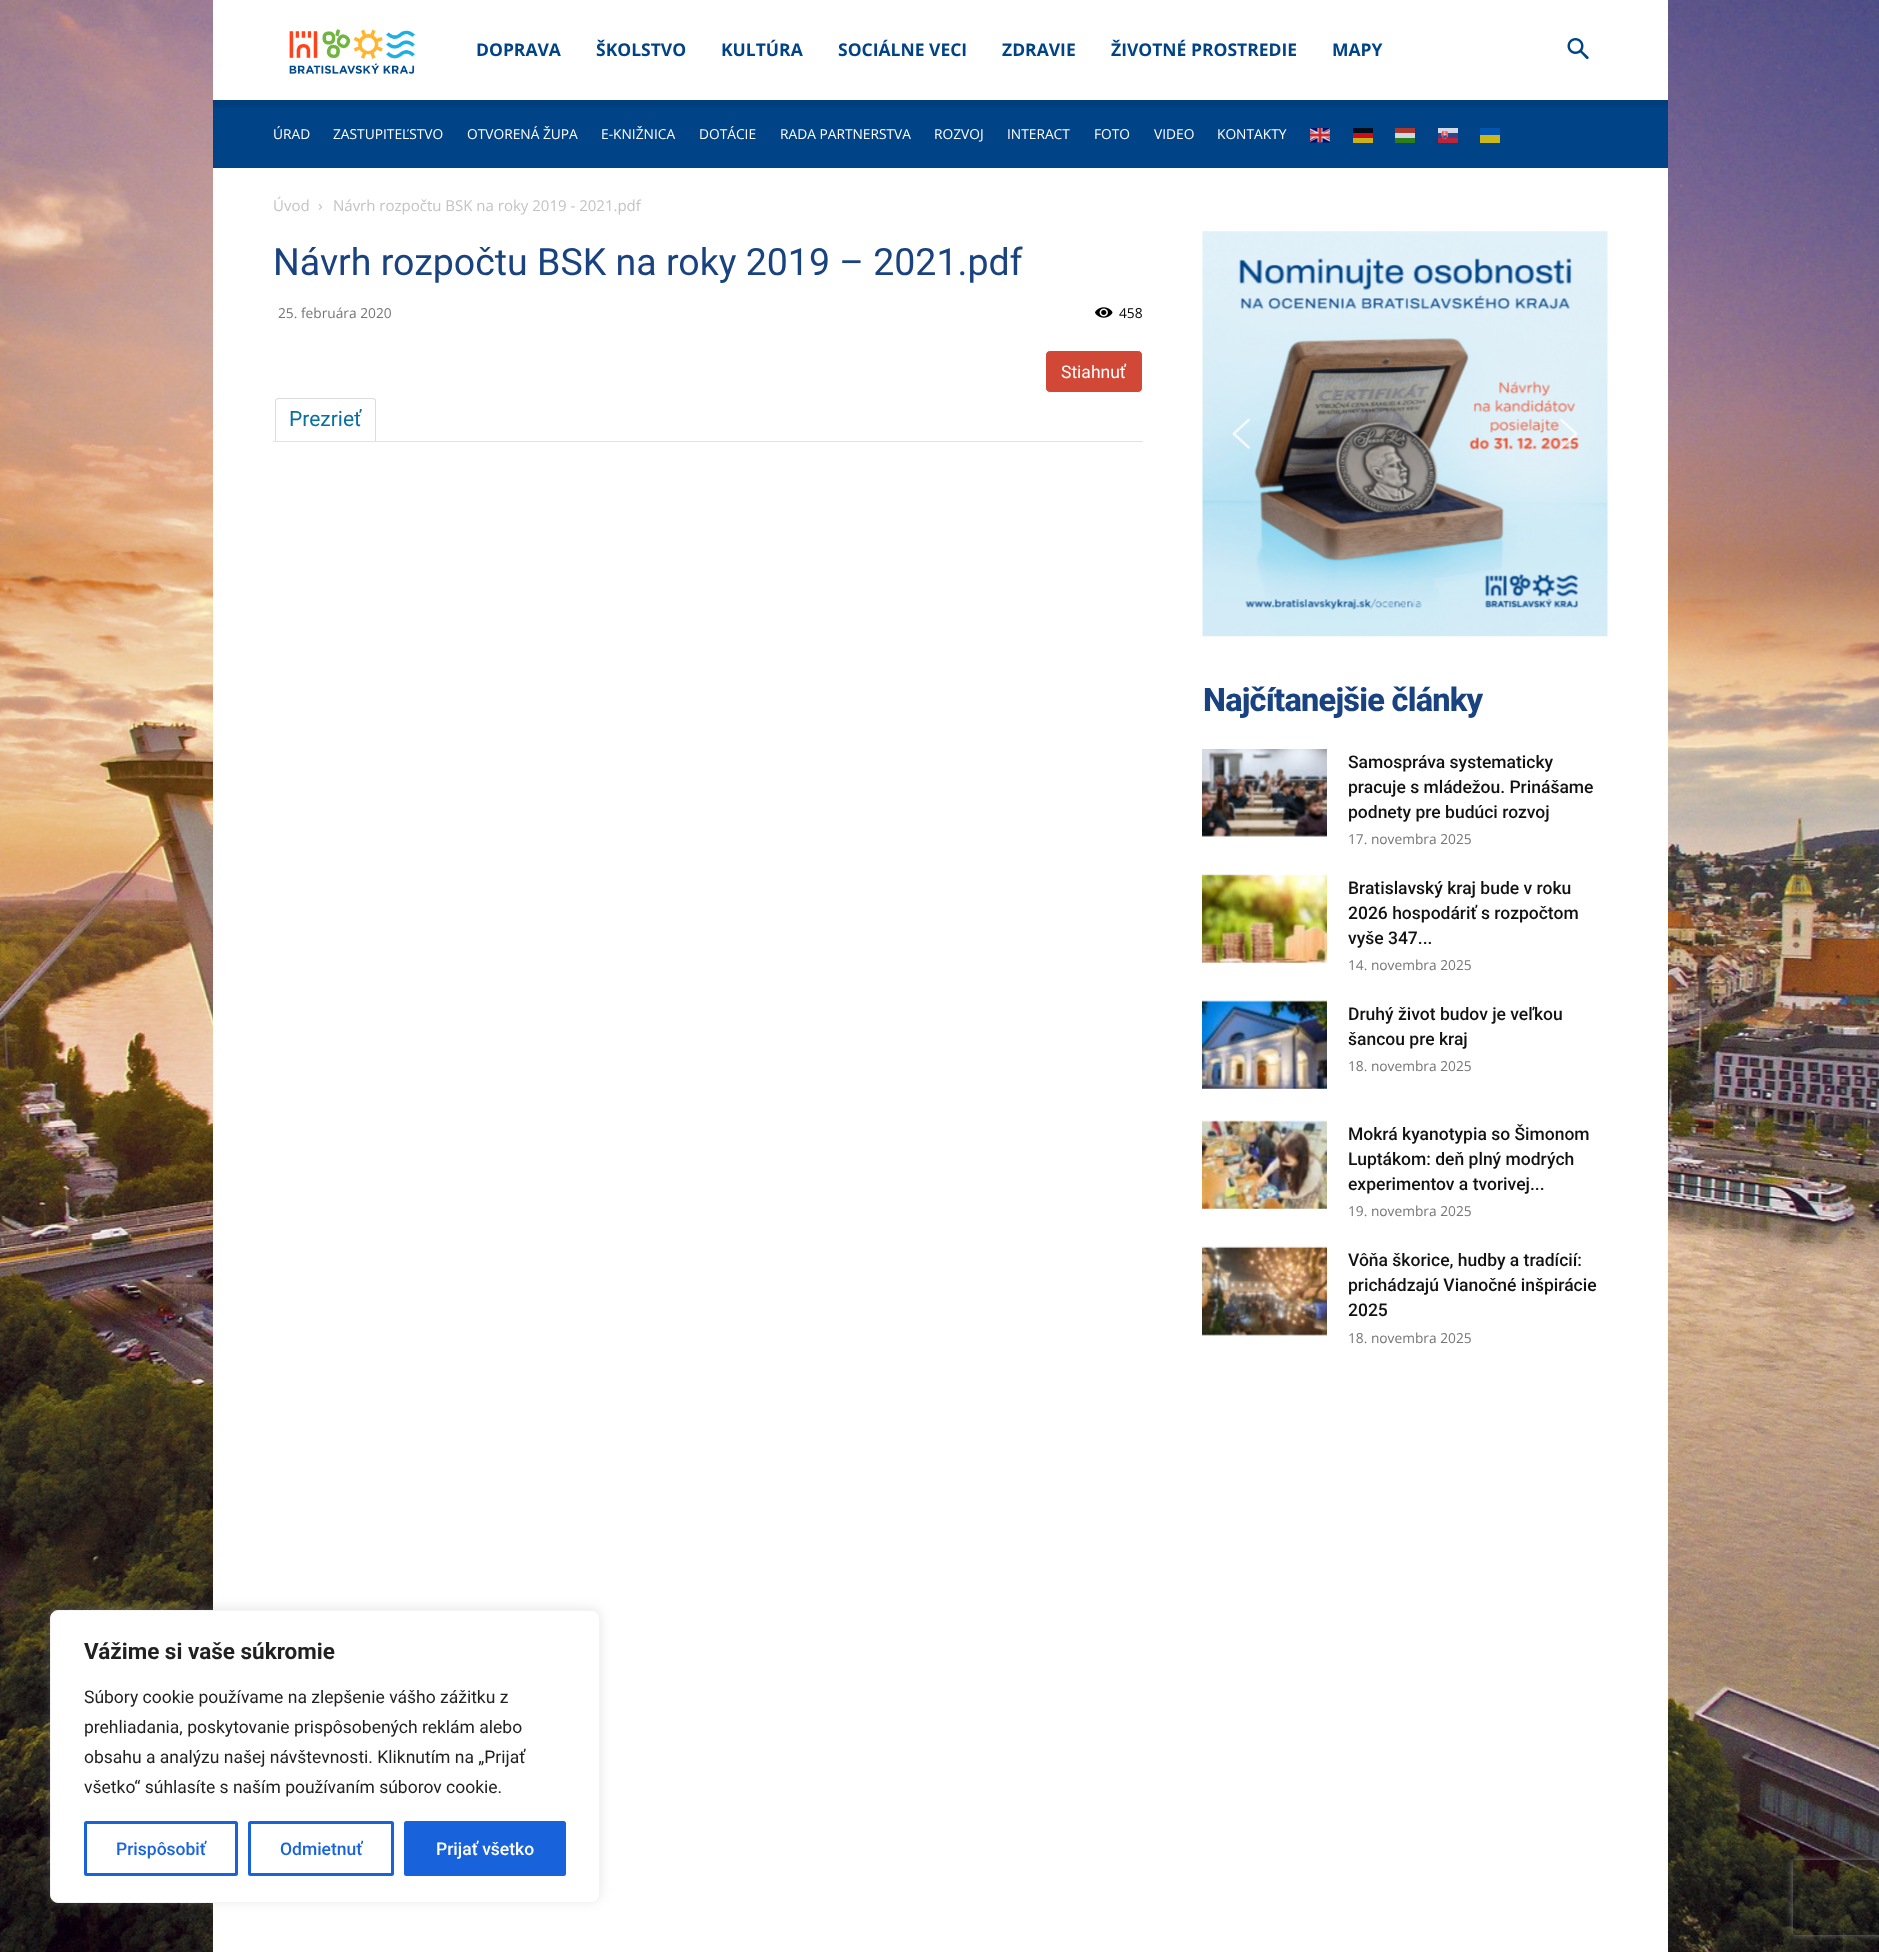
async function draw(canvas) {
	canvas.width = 1879;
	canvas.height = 1952;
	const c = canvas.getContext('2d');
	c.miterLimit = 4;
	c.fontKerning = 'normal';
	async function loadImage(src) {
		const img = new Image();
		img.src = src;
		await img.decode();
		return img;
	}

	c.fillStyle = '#fff';
	c.fillRect(0, 0, 1879, 1952);
	c.drawImage(await loadImage('img1.png'), 0, 0, 1879, 1952);
	c.fillRect(213, 0, 1455, 100);
	c.drawImage(await loadImage('img2.png'), 289, 29, 126, 45);
	c.font = 'bold 17.5px Open Sans';
	c.fillStyle = '#004386';
	for (const [text, x, y] of [
		['DOPRAVA', 476, 56],
		['ŠKOLSTVO', 596, 56],
		['KULTÚRA', 721, 56],
		['SOCIÁLNE VECI', 838, 56],
		['ZDRAVIE', 1002, 56],
		['ŽIVOTNÉ PROSTREDIE', 1111, 56],
		['MAPY', 1332, 56],
	]) {
		c.fillText(text, x, y);
	}
	c.drawImage(await loadImage('img3.png'), 1567, 38, 22, 22);
	c.fillRect(213, 100, 1455, 68);
	c.drawImage(await loadImage('img4.png'), 212, 100, 1456, 8);
	c.font = '13.75px Open Sans';
	c.fillStyle = '#fff';
	for (const [text, x, y] of [
		['ÚRAD', 273, 139],
		['ZASTUPITEĽSTVO', 333, 139],
		['OTVORENÁ ŽUPA', 467, 139],
		['E-KNIŽNICA', 601, 139],
		['DOTÁCIE', 699, 139],
		['RADA PARTNERSTVA', 780, 139],
		['ROZVOJ', 934, 139],
		['INTERACT', 1007, 139],
		['FOTO', 1094, 139],
		['VIDEO', 1154, 139],
		['KONTAKTY', 1217, 139],
	]) {
		c.fillText(text, x, y);
	}
	c.drawImage(await loadImage('img5.png'), 1310, 128, 20, 15);
	c.fillStyle = '#000d1b';
	c.fillRect(1353, 128, 20, 5);
	c.fillStyle = '#aa382c';
	c.fillRect(1395, 128, 20, 5);
	c.drawImage(await loadImage('img6.png'), 1438, 128, 20, 15);
	for (const [x, y, w, h, color] of [
		[1480, 128, 20, 7, '#0056b0'],
		[1353, 133, 20, 5, '#cc0d1b'],
		[1395, 133, 20, 5, '#ccd9e7'],
		[1480, 135, 20, 8, '#ccb81b'],
		[1353, 138, 20, 5, '#ccb11b'],
		[1395, 138, 20, 5, '#2d7e1b'],
		[213, 168, 1455, 1784, '#fff'],
	]) {
		c.fillStyle = color;
		c.fillRect(x, y, w, h);
	}
	c.font = '15px Open Sans';
	c.fillStyle = '#c3c3c3';
	c.fillText('Úvod', 273, 211);
	c.drawImage(await loadImage('img7.png'), 318, 204, 4, 6);
	c.fillText('Návrh rozpočtu BSK na roky 2019 - 2021.pdf', 333, 211);
	c.font = '37.5px Roboto';
	c.fillStyle = '#194281';
	c.fillText('Návrh rozpočtu BSK na roky 2019 – 2021.pdf', 273, 275);
	c.font = '13.75px Open Sans';
	c.fillStyle = '#767676';
	c.fillText('25. februára 2020', 278, 318);
	c.drawImage(await loadImage('img8.png'), 1095, 307, 18, 11);
	c.fillStyle = '#000';
	c.fillText('458', 1119, 318);
	c.fillStyle = '#d14836';
	c.beginPath();
	c.roundRect(1045.5, 350.5, 97, 42, 4.5);
	c.fill();
	c.strokeStyle = '#fff';
	c.stroke();
	c.font = '17.5px Roboto';
	c.fillStyle = '#fff';
	c.fillText('Stiahnuť', 1061, 378);
	c.fillStyle = '#dcdcdc';
	c.beginPath();
	c.moveTo(279, 398);
	c.lineTo(372, 398);
	c.bezierCurveTo(375, 398, 376, 399, 376, 401);
	c.lineTo(376, 441);
	c.lineTo(275, 441);
	c.lineTo(275, 401);
	c.bezierCurveTo(275, 399, 277, 398, 279, 398);
	c.closePath();
	c.moveTo(279, 399);
	c.lineTo(372, 399);
	c.bezierCurveTo(374, 399, 375, 400, 375, 401);
	c.lineTo(375, 441);
	c.lineTo(276, 441);
	c.lineTo(276, 401);
	c.bezierCurveTo(276, 400, 277, 399, 279, 399);
	c.closePath();
	c.fill('evenodd');
	c.font = '21px Roboto';
	c.fillStyle = '#086fa1';
	c.fillText('Prezrieť', 289, 426);
	c.fillStyle = '#e2e2e2';
	c.fillRect(273, 441, 870, 1);
	c.drawImage(await loadImage('img9.png'), 1202, 231, 406, 406);
	c.drawImage(await loadImage('img10.png'), 1232, 418, 18, 31);
	c.drawImage(await loadImage('img11.png'), 1560, 418, 18, 31);
	c.letterSpacing = '-0.75px';
	c.font = '800 32.5px Roboto';
	c.fillStyle = '#194281';
	c.fillText('Najčítanejšie články', 1203, 711);
	c.drawImage(await loadImage('img12.png'), 1202, 749, 125, 88);
	c.letterSpacing = '0px';
	c.font = '500 17.5px Roboto';
	c.fillStyle = '#111';
	for (const [text, x, y] of [
		['Samospráva systematicky', 1348, 768],
		['pracuje s mládežou. Prinášame', 1348, 793],
		['podnety pre budúci rozvoj', 1348, 818],
	]) {
		c.fillText(text, x, y);
	}
	c.font = '13.75px Open Sans';
	c.fillStyle = '#767676';
	c.fillText('17. novembra 2025', 1348, 844);
	c.drawImage(await loadImage('img13.png'), 1202, 874, 125, 89);
	c.font = '500 17.5px Roboto';
	c.fillStyle = '#111';
	for (const [text, x, y] of [
		['Bratislavský kraj bude v roku', 1348, 894],
		['2026 hospodáriť s rozpočtom', 1348, 919],
		['vyše 347...', 1348, 944],
	]) {
		c.fillText(text, x, y);
	}
	c.font = '13.75px Open Sans';
	c.fillStyle = '#767676';
	c.fillText('14. novembra 2025', 1348, 970);
	c.drawImage(await loadImage('img14.png'), 1202, 1000, 125, 89);
	c.font = '500 17.5px Roboto';
	c.fillStyle = '#111';
	c.fillText('Druhý život budov je veľkou', 1348, 1020);
	c.fillText('šancou pre kraj', 1348, 1045);
	c.font = '13.75px Open Sans';
	c.fillStyle = '#767676';
	c.fillText('18. novembra 2025', 1348, 1071);
	c.drawImage(await loadImage('img15.png'), 1202, 1120, 125, 89);
	c.font = '500 17.5px Roboto';
	c.fillStyle = '#111';
	for (const [text, x, y] of [
		['Mokrá kyanotypia so Šimonom', 1348, 1140],
		['Luptákom: deň plný modrých', 1348, 1165],
		['experimentov a tvorivej...', 1348, 1190],
	]) {
		c.fillText(text, x, y);
	}
	c.font = '13.75px Open Sans';
	c.fillStyle = '#767676';
	c.fillText('19. novembra 2025', 1348, 1216);
	c.drawImage(await loadImage('img16.png'), 1202, 1246, 125, 90);
	c.font = '500 17.5px Roboto';
	c.fillStyle = '#111';
	for (const [text, x, y] of [
		['Vôňa škorice, hudby a tradícií:', 1348, 1266],
		['prichádzajú Vianočné inšpirácie', 1348, 1291],
		['2025', 1348, 1316],
	]) {
		c.fillText(text, x, y);
	}
	c.font = '13.75px Open Sans';
	c.fillStyle = '#767676';
	c.fillText('18. novembra 2025', 1348, 1343);
	c.fillStyle = '#acabab4d';
	c.filter = 'blur(6px)';
	c.beginPath();
	c.roundRect(50, 1609, 550, 292, 8);
	c.fill();
	c.filter = 'none';
	c.fillStyle = '#fff';
	c.beginPath();
	c.roundRect(50.5, 1610.5, 549, 292, 7.5);
	c.fill();
	c.strokeStyle = '#f4f4f4';
	c.stroke();
	c.font = 'bold 22.5px Roboto';
	c.fillStyle = '#212121';
	c.fillText('Vážime si vaše súkromie', 84, 1659);
	c.font = '17.5px Roboto';
	for (const [text, x, y] of [
		['Súbory cookie používame na zlepšenie vášho zážitku z', 84, 1703],
		['prehliadania, poskytovanie prispôsobených reklám alebo', 84, 1733],
		['obsahu a analýzu našej návštevnosti. Kliknutím na „Prijať', 84, 1763],
		['všetko“ súhlasíte s naším používaním súborov cookie.', 84, 1793],
	]) {
		c.fillText(text, x, y);
	}
	c.beginPath();
	c.roundRect(85.5, 1822.5, 151, 52, 1);
	c.strokeStyle = '#1863dc';
	c.lineWidth = 3;
	c.stroke();
	c.font = '500 17.5px Roboto';
	c.fillStyle = '#1863dc';
	c.fillText('Prispôsobiť', 116, 1855);
	c.beginPath();
	c.roundRect(249.5, 1822.5, 143, 52, 1);
	c.stroke();
	c.fillText('Odmietnuť', 280, 1855);
	c.beginPath();
	c.roundRect(405.5, 1822.5, 159, 52, 1);
	c.fill();
	c.stroke();
	c.fillStyle = '#fff';
	c.fillText('Prijať všetko', 436, 1855);
	c.save();
	c.beginPath();
	c.moveTo(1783, 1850);
	c.lineTo(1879, 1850);
	c.lineTo(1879, 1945);
	c.lineTo(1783, 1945);
	c.closePath();
	c.moveTo(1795.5, 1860);
	c.lineTo(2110.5, 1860);
	c.bezierCurveTo(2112, 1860, 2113, 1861, 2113, 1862.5);
	c.lineTo(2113, 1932.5);
	c.bezierCurveTo(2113, 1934, 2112, 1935, 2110.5, 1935);
	c.lineTo(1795.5, 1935);
	c.bezierCurveTo(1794, 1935, 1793, 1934, 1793, 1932.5);
	c.lineTo(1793, 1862.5);
	c.bezierCurveTo(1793, 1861, 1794, 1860, 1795.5, 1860);
	c.closePath();
	c.clip('evenodd');
	c.fillStyle = '#808080';
	c.filter = 'blur(3px)';
	c.beginPath();
	c.roundRect(1793, 1860, 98, 75, 2.5);
	c.fill();
	c.filter = 'none';
	c.restore();
}

draw(document.querySelector('canvas'));
